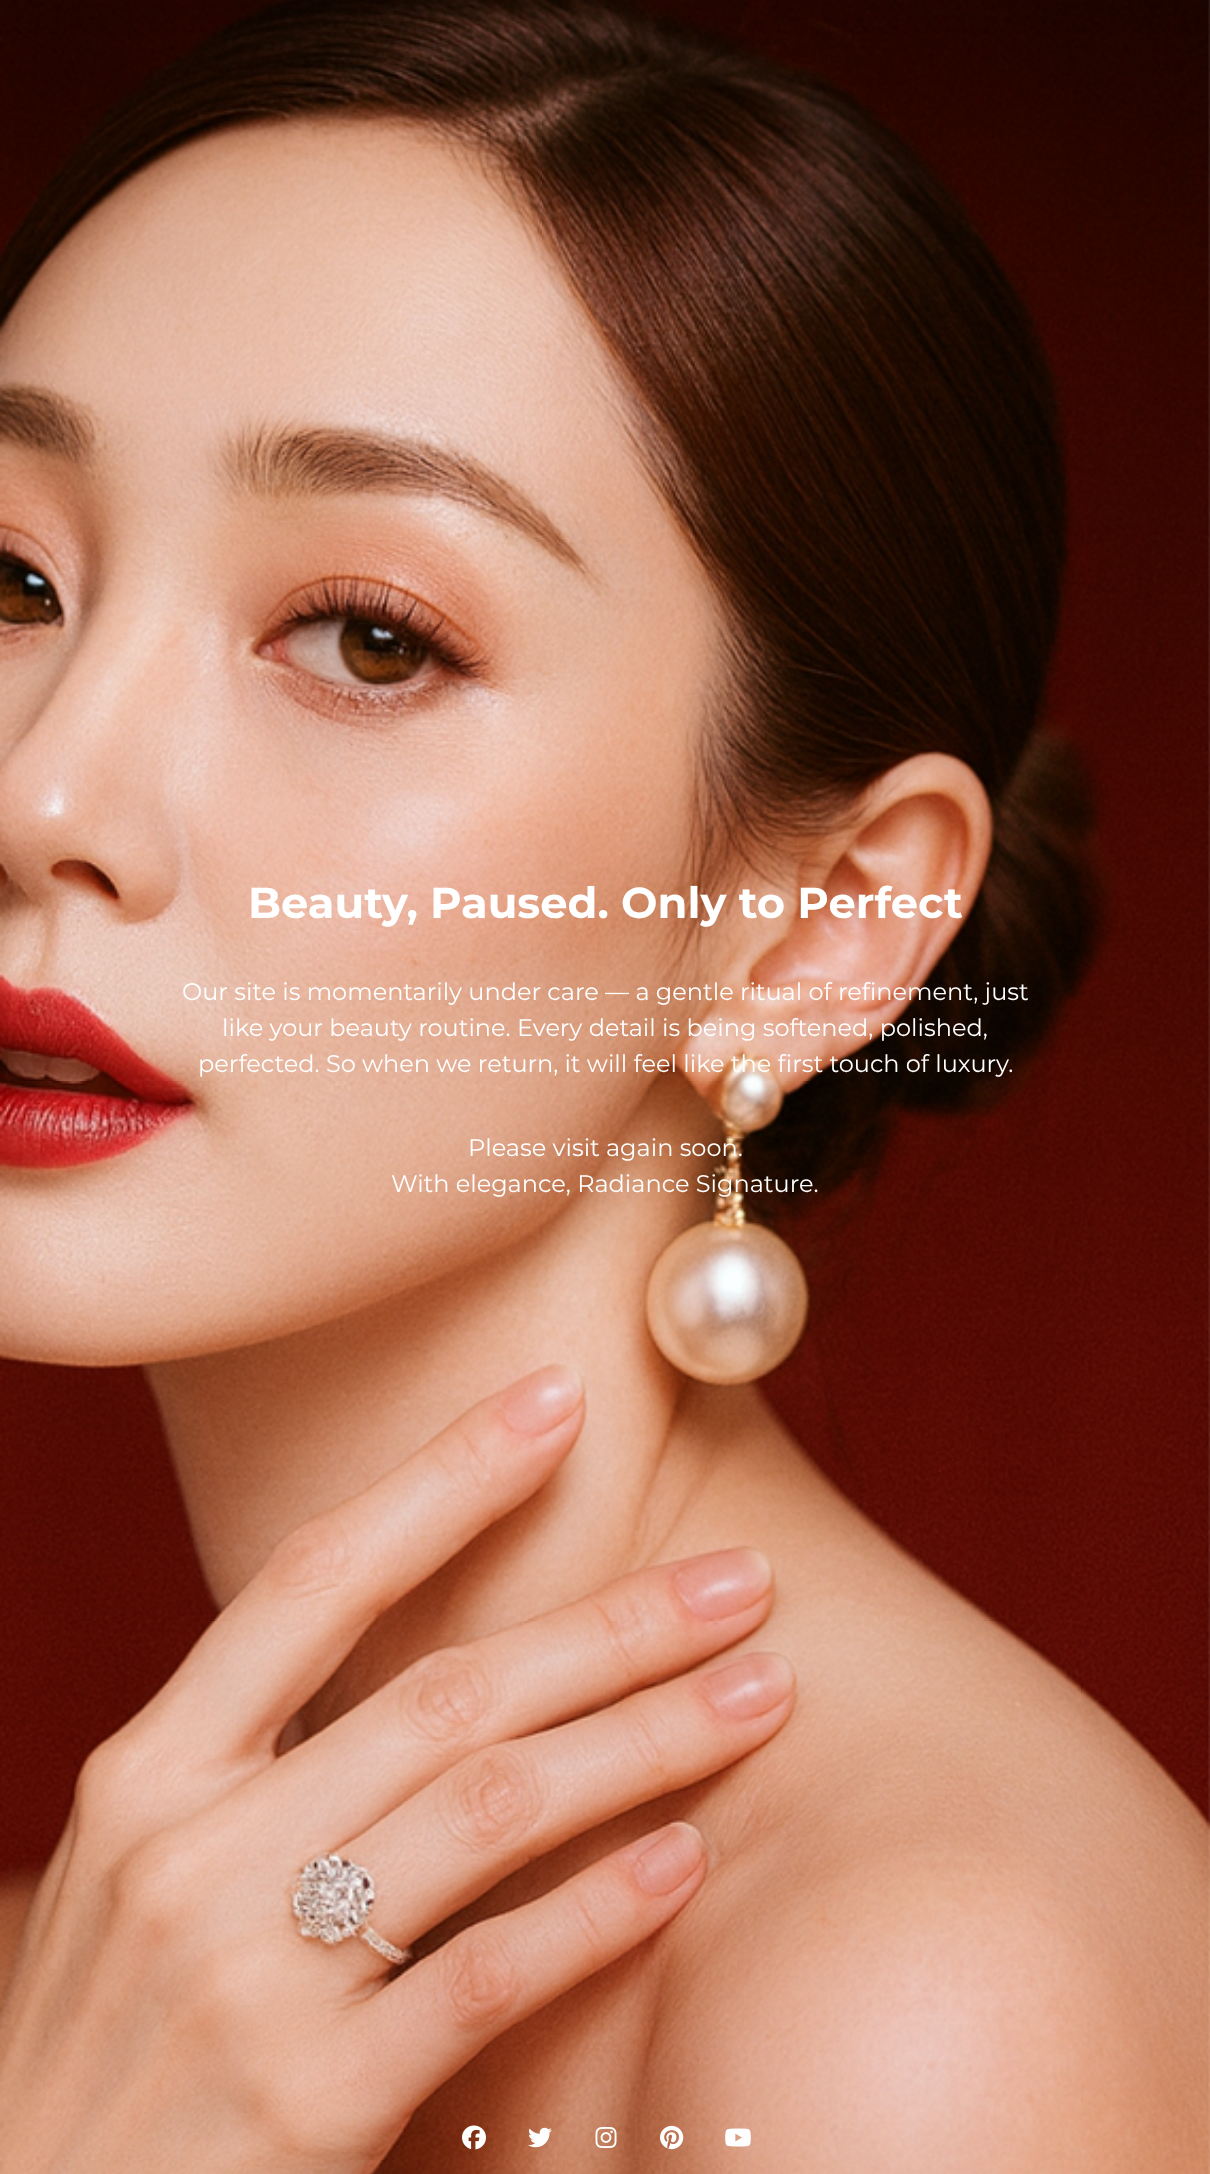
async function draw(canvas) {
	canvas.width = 1210;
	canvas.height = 2174;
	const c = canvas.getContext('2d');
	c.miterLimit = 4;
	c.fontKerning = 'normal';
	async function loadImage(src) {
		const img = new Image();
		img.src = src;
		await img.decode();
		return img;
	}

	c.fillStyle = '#fff';
	c.fillRect(0, 0, 1210, 2174);
	c.drawImage(await loadImage('img1.png'), 0, 0, 1210, 2174);
	c.font = 'bold 43.25px Montserrat';
	c.fillText('Beauty, Paused. Only to Perfect', 248, 918);
	c.font = '24px Montserrat';
	for (const [text, x, y] of [
		['Our site is momentarily under care — a gentle ritual of refinement, just', 182, 1000],
		['like your beauty routine. Every detail is being softened, polished,', 222, 1036],
		['perfected. So when we return, it will feel like the first touch of luxury.', 198, 1072],
		['Please visit again soon.', 468, 1156],
		['With elegance, Radiance Signature.', 391, 1192],
	]) {
		c.fillText(text, x, y);
	}
	c.drawImage(await loadImage('img2.png'), 462, 2125, 24, 25);
	c.drawImage(await loadImage('img3.png'), 528, 2127, 24, 21);
	c.drawImage(await loadImage('img4.png'), 595, 2127, 22, 21);
	c.drawImage(await loadImage('img5.png'), 660, 2125, 24, 25);
	c.drawImage(await loadImage('img6.png'), 725, 2128, 26, 19);
}

draw(document.querySelector('canvas'));
